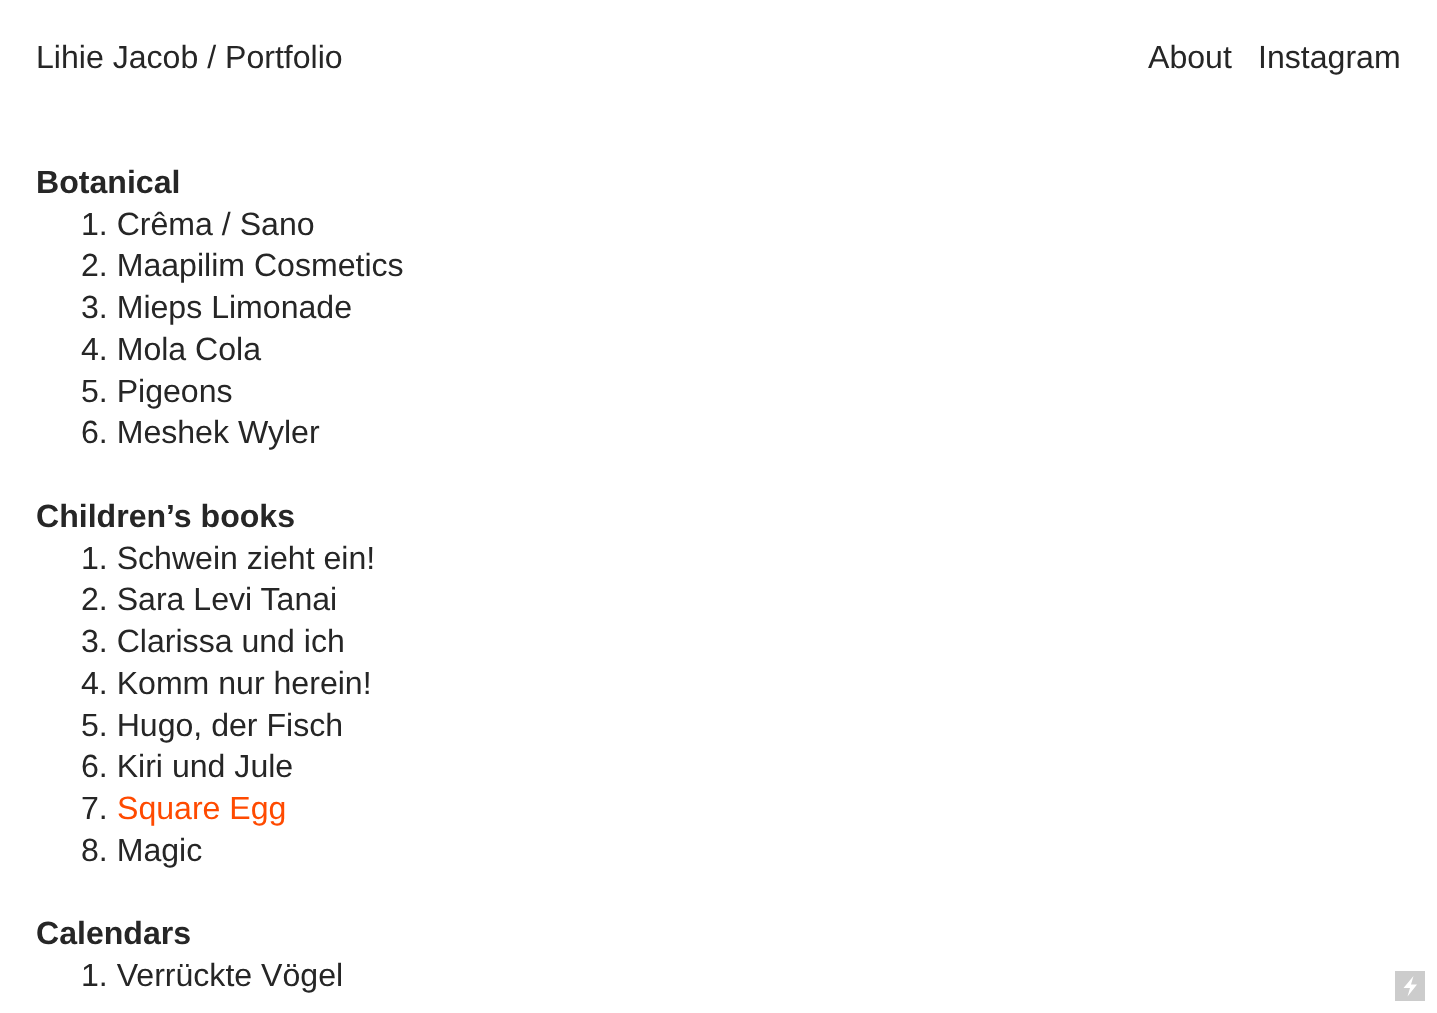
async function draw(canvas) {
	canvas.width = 1437;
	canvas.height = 1013;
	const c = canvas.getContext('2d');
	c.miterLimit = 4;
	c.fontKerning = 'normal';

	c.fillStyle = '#fff';
	c.fillRect(0, 0, 1437, 1013);
	c.font = '32.1px Liberation Sans';
	c.fillStyle = '#262626';
	c.fillText('Lihie Jacob / Portfolio', 36, 68);
	c.font = 'bold 32.1px Liberation Sans';
	c.fillText('Botanical', 36, 193);
	c.font = '32.1px Liberation Sans';
	for (const [text, x, y] of [
		['1. Crêma / Sano', 81, 235],
		['2. Maapilim Cosmetics', 81, 276],
		['3. Mieps Limonade', 81, 318],
		['4. Mola Cola', 81, 360],
		['5. Pigeons', 81, 402],
		['6. Meshek Wyler', 81, 443],
	]) {
		c.fillText(text, x, y);
	}
	c.font = 'bold 32.1px Liberation Sans';
	c.fillText('Children’s books', 36, 527);
	c.font = '32.1px Liberation Sans';
	for (const [text, x, y] of [
		['1. Schwein zieht ein!', 81, 569],
		['2. Sara Levi Tanai', 81, 610],
		['3. Clarissa und ich', 81, 652],
		['4. Komm nur herein!', 81, 694],
		['5. Hugo, der Fisch', 81, 736],
		['6. Kiri und Jule', 81, 777],
		['7.', 81, 819],
	]) {
		c.fillText(text, x, y);
	}
	c.fillStyle = '#ff4a00';
	c.fillText('Square Egg', 117, 819);
	c.fillStyle = '#262626';
	c.fillText('8. Magic', 81, 861);
	c.font = 'bold 32.1px Liberation Sans';
	c.fillText('Calendars', 36, 944);
	c.font = '32.1px Liberation Sans';
	for (const [text, x, y] of [
		['1. Verrückte Vögel', 81, 986],
		['About', 1148, 68],
		['Instagram', 1258, 68],
	]) {
		c.fillText(text, x, y);
	}
	c.fillStyle = '#ccc';
	c.fillRect(1395, 971, 30, 30);
	c.fillStyle = '#fff';
	c.beginPath();
	c.moveTo(1417, 984.5);
	c.lineTo(1411, 984.5);
	c.lineTo(1413.5, 976);
	c.lineTo(1403.5, 988);
	c.lineTo(1410, 988);
	c.lineTo(1407.5, 996.5);
	c.closePath();
	c.fill();
}

draw(document.querySelector('canvas'));
